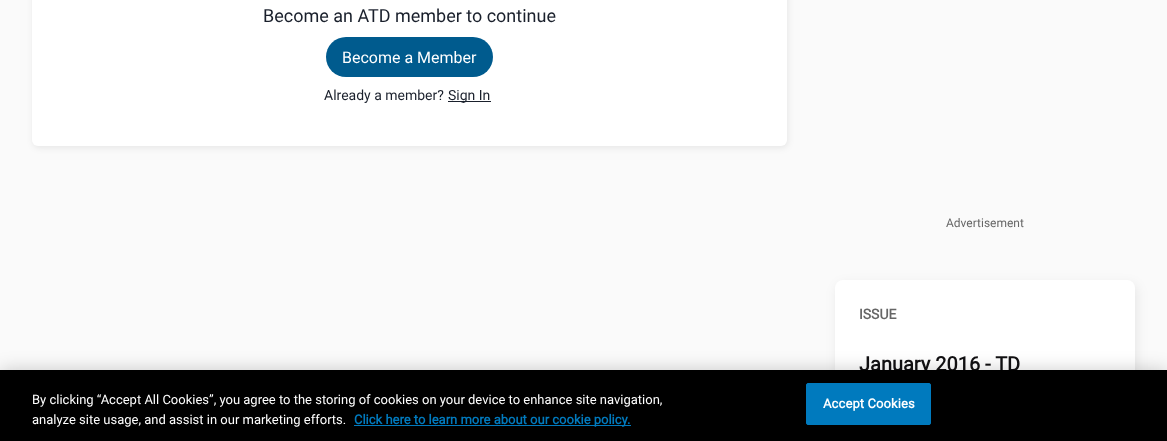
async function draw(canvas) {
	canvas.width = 1167;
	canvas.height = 441;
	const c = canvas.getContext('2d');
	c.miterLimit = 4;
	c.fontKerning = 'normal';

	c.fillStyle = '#fafafa';
	c.fillRect(0, 0, 1167, 441);
	c.fillStyle = '#00000014';
	c.filter = 'blur(3px)';
	c.beginPath();
	c.roundRect(33, -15, 755, 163, 6);
	c.fill();
	c.filter = 'none';
	c.fillStyle = '#fff';
	c.beginPath();
	c.roundRect(32, -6, 755, 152, 6);
	c.fill();
	c.font = '18px Roboto';
	c.fillStyle = '#1a202c';
	c.fillText('Become an ATD member to continue', 263, 22);
	c.fillStyle = '#005b8e';
	c.beginPath();
	c.roundRect(326, 37, 167, 40, 20);
	c.fill();
	c.font = '16px Roboto';
	c.fillStyle = '#fff';
	c.fillText('Become a Member', 342, 63);
	c.font = '14px Roboto';
	c.fillStyle = '#1a202c';
	c.fillText('Already a member?', 324, 100);
	c.fillRect(448, 101, 43, 1);
	c.fillText('Sign In', 448, 100);
	c.font = '12px Roboto';
	c.fillStyle = '#666';
	c.fillText('Advertisement', 946, 227);
	c.fillStyle = '#00000014';
	c.filter = 'blur(6px)';
	c.beginPath();
	c.roundRect(837, 284, 300, 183, 8);
	c.fill();
	c.filter = 'none';
	c.fillStyle = '#fff';
	c.beginPath();
	c.roundRect(835, 280, 300, 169, 8);
	c.fill();
	c.font = 'bold 14px Roboto';
	c.fillStyle = '#666';
	c.fillText('ISSUE', 859, 319);
	c.font = 'bold 20px Roboto';
	c.fillStyle = '#121113';
	c.fillText('January 2016 - TD', 859, 371);
	c.fillStyle = '#00000033';
	c.filter = 'blur(9px)';
	c.beginPath();
	c.rect(0, 370, 1167, 71);
	c.fill();
	c.filter = 'none';
	c.fillStyle = '#000';
	c.fillRect(0, 370, 1167, 71);
	c.font = '13px Roboto';
	c.fillStyle = '#fff';
	c.fillText('By clicking “Accept All Cookies”, you agree to the storing of cookies on your device to enhance site navigation,', 32, 404);
	c.fillText('analyze site usage, and assist in our marketing efforts.', 32, 424);
	c.fillStyle = '#007abe';
	c.fillRect(354, 425, 277, 1);
	c.font = 'bold 13px Roboto';
	c.fillText('Click here to learn more about our cookie policy.', 354, 424);
	c.beginPath();
	c.roundRect(806.5, 383.5, 124, 41, 1.5);
	c.fill();
	c.strokeStyle = '#007abe';
	c.stroke();
	c.letterSpacing = '0.1px';
	c.fillStyle = '#fff';
	c.fillText('Accept Cookies', 823, 408);
}

draw(document.querySelector('canvas'));
